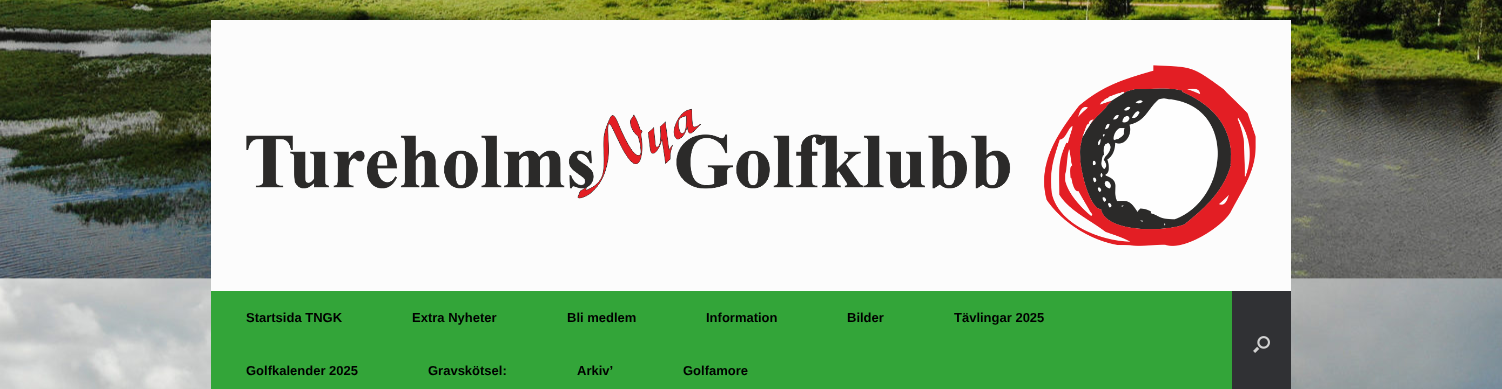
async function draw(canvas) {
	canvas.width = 1502;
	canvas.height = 389;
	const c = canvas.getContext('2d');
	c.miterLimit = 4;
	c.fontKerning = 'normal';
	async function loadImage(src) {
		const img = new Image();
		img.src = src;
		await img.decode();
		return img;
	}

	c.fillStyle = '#fff';
	c.fillRect(0, 0, 1502, 389);
	c.drawImage(await loadImage('img1.png'), 0, 0, 1502, 389);
	c.fillStyle = '#fcfcfc';
	c.fillRect(211, 20, 1080, 271);
	c.drawImage(await loadImage('img2.png'), 246, 65, 1010, 181);
	c.fillStyle = '#33a539';
	c.fillRect(211, 291, 1021, 98);
	c.font = 'bold 13px Liberation Sans';
	c.fillStyle = '#000';
	for (const [text, x, y] of [
		['Startsida TNGK', 246, 322],
		['Extra Nyheter', 412, 322],
		['Bli medlem', 567, 322],
		['Information', 706, 322],
		['Bilder', 847, 322],
		['Tävlingar 2025', 954, 322],
		['Golfkalender 2025', 246, 375],
		['Gravskötsel:', 428, 375],
		['Arkiv’', 577, 375],
		['Golfamore', 683, 375],
	]) {
		c.fillText(text, x, y);
	}
	c.fillStyle = '#303134';
	c.fillRect(1232, 291, 59, 98);
	c.drawImage(await loadImage('img3.png'), 1253, 336, 17, 17);
}

draw(document.querySelector('canvas'));
